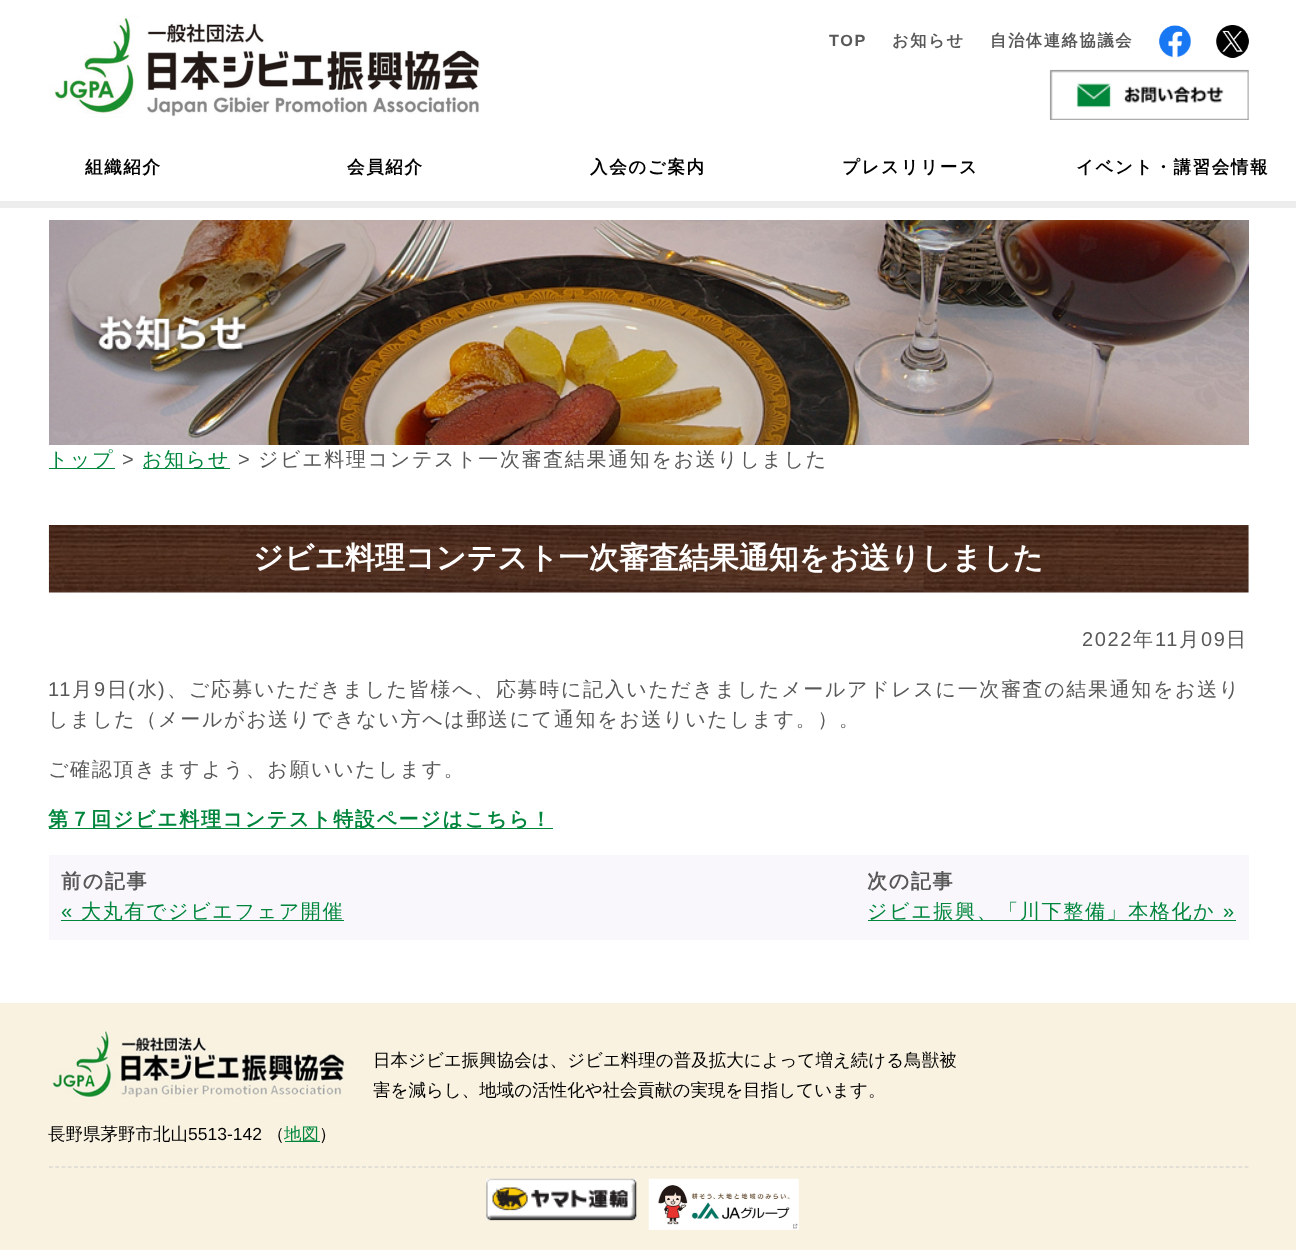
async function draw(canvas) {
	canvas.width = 1296;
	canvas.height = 1250;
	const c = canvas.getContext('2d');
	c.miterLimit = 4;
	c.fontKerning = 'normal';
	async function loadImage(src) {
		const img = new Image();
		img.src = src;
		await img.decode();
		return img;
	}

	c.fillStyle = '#fff';
	c.fillRect(0, 0, 1296, 1250);
	c.drawImage(await loadImage('img1.png'), 49, 15, 431, 103);
	c.letterSpacing = '1.65px';
	c.font = 'bold 16.25px Liberation Sans';
	c.fillStyle = '#585858';
	c.fillText('TOP', 829, 46);
	c.font = 'bold 16.25px WenQuanYi Zen Hei';
	c.fillText('お知らせ', 892, 46);
	c.fillText('自治体連絡協議会', 990, 46);
	c.drawImage(await loadImage('img2.png'), 1158, 25, 33, 33);
	c.drawImage(await loadImage('img3.png'), 1216, 25, 33, 33);
	c.drawImage(await loadImage('img4.png'), 1049, 69, 200, 51);
	c.fillStyle = '#ededed';
	c.fillRect(0, 201, 1296, 7);
	c.font = 'bold 17.5px WenQuanYi Zen Hei';
	c.fillStyle = '#000';
	for (const [text, x, y] of [
		['組織紹介', 85, 173],
		['会員紹介', 347, 173],
		['入会のご案内', 590, 173],
		['プレスリリース', 842, 173],
		['イベント・講習会情報', 1076, 173],
	]) {
		c.fillText(text, x, y);
	}
	c.drawImage(await loadImage('img5.png'), 49, 220, 1200, 225);
	c.fillStyle = '#00863c';
	c.fillRect(49, 468, 66, 1);
	c.font = '500 20px WenQuanYi Zen Hei';
	c.fillText('トップ', 48, 466);
	c.font = '20px Liberation Sans';
	c.fillStyle = '#585858';
	c.fillText('>', 122, 466);
	c.fillStyle = '#00863c';
	c.fillRect(143, 468, 87, 1);
	c.font = '500 20px WenQuanYi Zen Hei';
	c.fillText('お知らせ', 142, 466);
	c.font = '20px Liberation Sans';
	c.fillStyle = '#585858';
	c.fillText('>', 238, 466);
	c.font = '500 20px WenQuanYi Zen Hei';
	c.fillText('ジビエ料理コンテスト一次審査結果通知をお送りしました', 258, 466);
	c.drawImage(await loadImage('img6.png'), 48, 525, 1201, 68);
	c.letterSpacing = '0px';
	c.font = 'bold 30px WenQuanYi Zen Hei';
	c.fillStyle = '#fff';
	c.fillText('ジビエ料理コンテスト一次審査結果通知をお送りしました', 253, 568);
	c.letterSpacing = '1.65px';
	c.font = '20px Liberation Sans';
	c.fillStyle = '#585858';
	c.fillText('2022', 1082, 646);
	c.font = '500 20px WenQuanYi Zen Hei';
	c.fillText('年', 1133, 646);
	c.font = '20px Liberation Sans';
	c.fillText('11', 1155, 646);
	c.font = '500 20px WenQuanYi Zen Hei';
	c.fillText('月', 1179, 646);
	c.font = '20px Liberation Sans';
	c.fillText('09', 1201, 646);
	c.font = '500 20px WenQuanYi Zen Hei';
	c.fillText('日', 1226, 646);
	c.font = '20px Liberation Sans';
	c.fillText('11', 48, 696);
	c.font = '500 20px WenQuanYi Zen Hei';
	c.fillText('月', 72, 696);
	c.font = '20px Liberation Sans';
	c.fillText('9', 94, 696);
	c.font = '500 20px WenQuanYi Zen Hei';
	c.fillText('日', 107, 696);
	c.font = '20px Liberation Sans';
	c.fillText('(', 128, 696);
	c.font = '500 20px WenQuanYi Zen Hei';
	c.fillText('水', 137, 696);
	c.font = '20px Liberation Sans';
	c.fillText(')', 158, 696);
	c.font = '500 20px WenQuanYi Zen Hei';
	for (const [text, x, y] of [
		['、ご応募いただきました皆様へ、応募時に記入いただきましたメールアドレスに一次審査の結果通知をお送り', 167, 696],
		['しました（メールがお送りできない方へは郵送にて通知をお送りいたします。）。', 48, 726],
		['ご確認頂きますよう、お願いいたします。', 48, 776],
	]) {
		c.fillText(text, x, y);
	}
	c.fillStyle = '#00863c';
	c.fillRect(49, 828, 504, 1);
	c.font = 'bold 20px WenQuanYi Zen Hei';
	c.fillText('第７回ジビエ料理コンテスト特設ページはこちら！', 48, 826);
	c.fillStyle = '#f9f7fc';
	c.fillRect(49, 855, 1200, 85);
	c.fillStyle = '#585858';
	c.fillText('前の記事', 61, 888);
	c.font = '20px Liberation Sans';
	c.fillStyle = '#00863c';
	c.fillText('«', 61, 918);
	c.fillRect(61, 920, 283, 1);
	c.font = '500 20px WenQuanYi Zen Hei';
	c.fillText('大丸有でジビエフェア開催', 81, 918);
	c.font = 'bold 20px WenQuanYi Zen Hei';
	c.fillStyle = '#585858';
	c.fillText('次の記事', 867, 888);
	c.fillStyle = '#00863c';
	c.fillRect(868, 920, 368, 1);
	c.font = '500 20px WenQuanYi Zen Hei';
	c.fillText('ジビエ振興、「川下整備」本格化か', 867, 918);
	c.font = '20px Liberation Sans';
	c.fillText('»', 1223, 918);
	c.fillStyle = '#f9f2e1';
	c.fillRect(0, 1003, 1296, 247);
	c.letterSpacing = '0px';
	c.font = '500 17.5px WenQuanYi Zen Hei';
	c.fillStyle = '#000';
	c.fillText('日本ジビエ振興協会は、ジビエ料理の普及拡大によって増え続ける鳥獣被', 373, 1066);
	c.fillText('害を減らし、地域の活性化や社会貢献の実現を目指しています。', 373, 1096);
	c.drawImage(await loadImage('img7.png'), 52, 1031, 293, 67);
	c.fillText('長野県茅野市北山', 48, 1140);
	c.font = '17.5px Liberation Sans';
	c.fillText('5513-142', 188, 1140);
	c.font = '500 17.5px WenQuanYi Zen Hei';
	c.fillText('（', 267, 1140);
	c.fillStyle = '#00863c';
	c.fillRect(285, 1141, 35, 1);
	c.fillText('地図', 284, 1140);
	c.fillStyle = '#000';
	c.fillText('）', 319, 1140);
	c.beginPath();
	c.moveTo(49, 1167);
	c.lineTo(1249, 1167);
	c.strokeStyle = '#ccc';
	c.lineWidth = 1.2;
	c.setLineDash([3.75, 2.51]);
	c.stroke();
	c.drawImage(await loadImage('img8.png'), 486, 1178, 151, 43);
	c.drawImage(await loadImage('img9.png'), 648, 1178, 151, 52);
}

draw(document.querySelector('canvas'));
